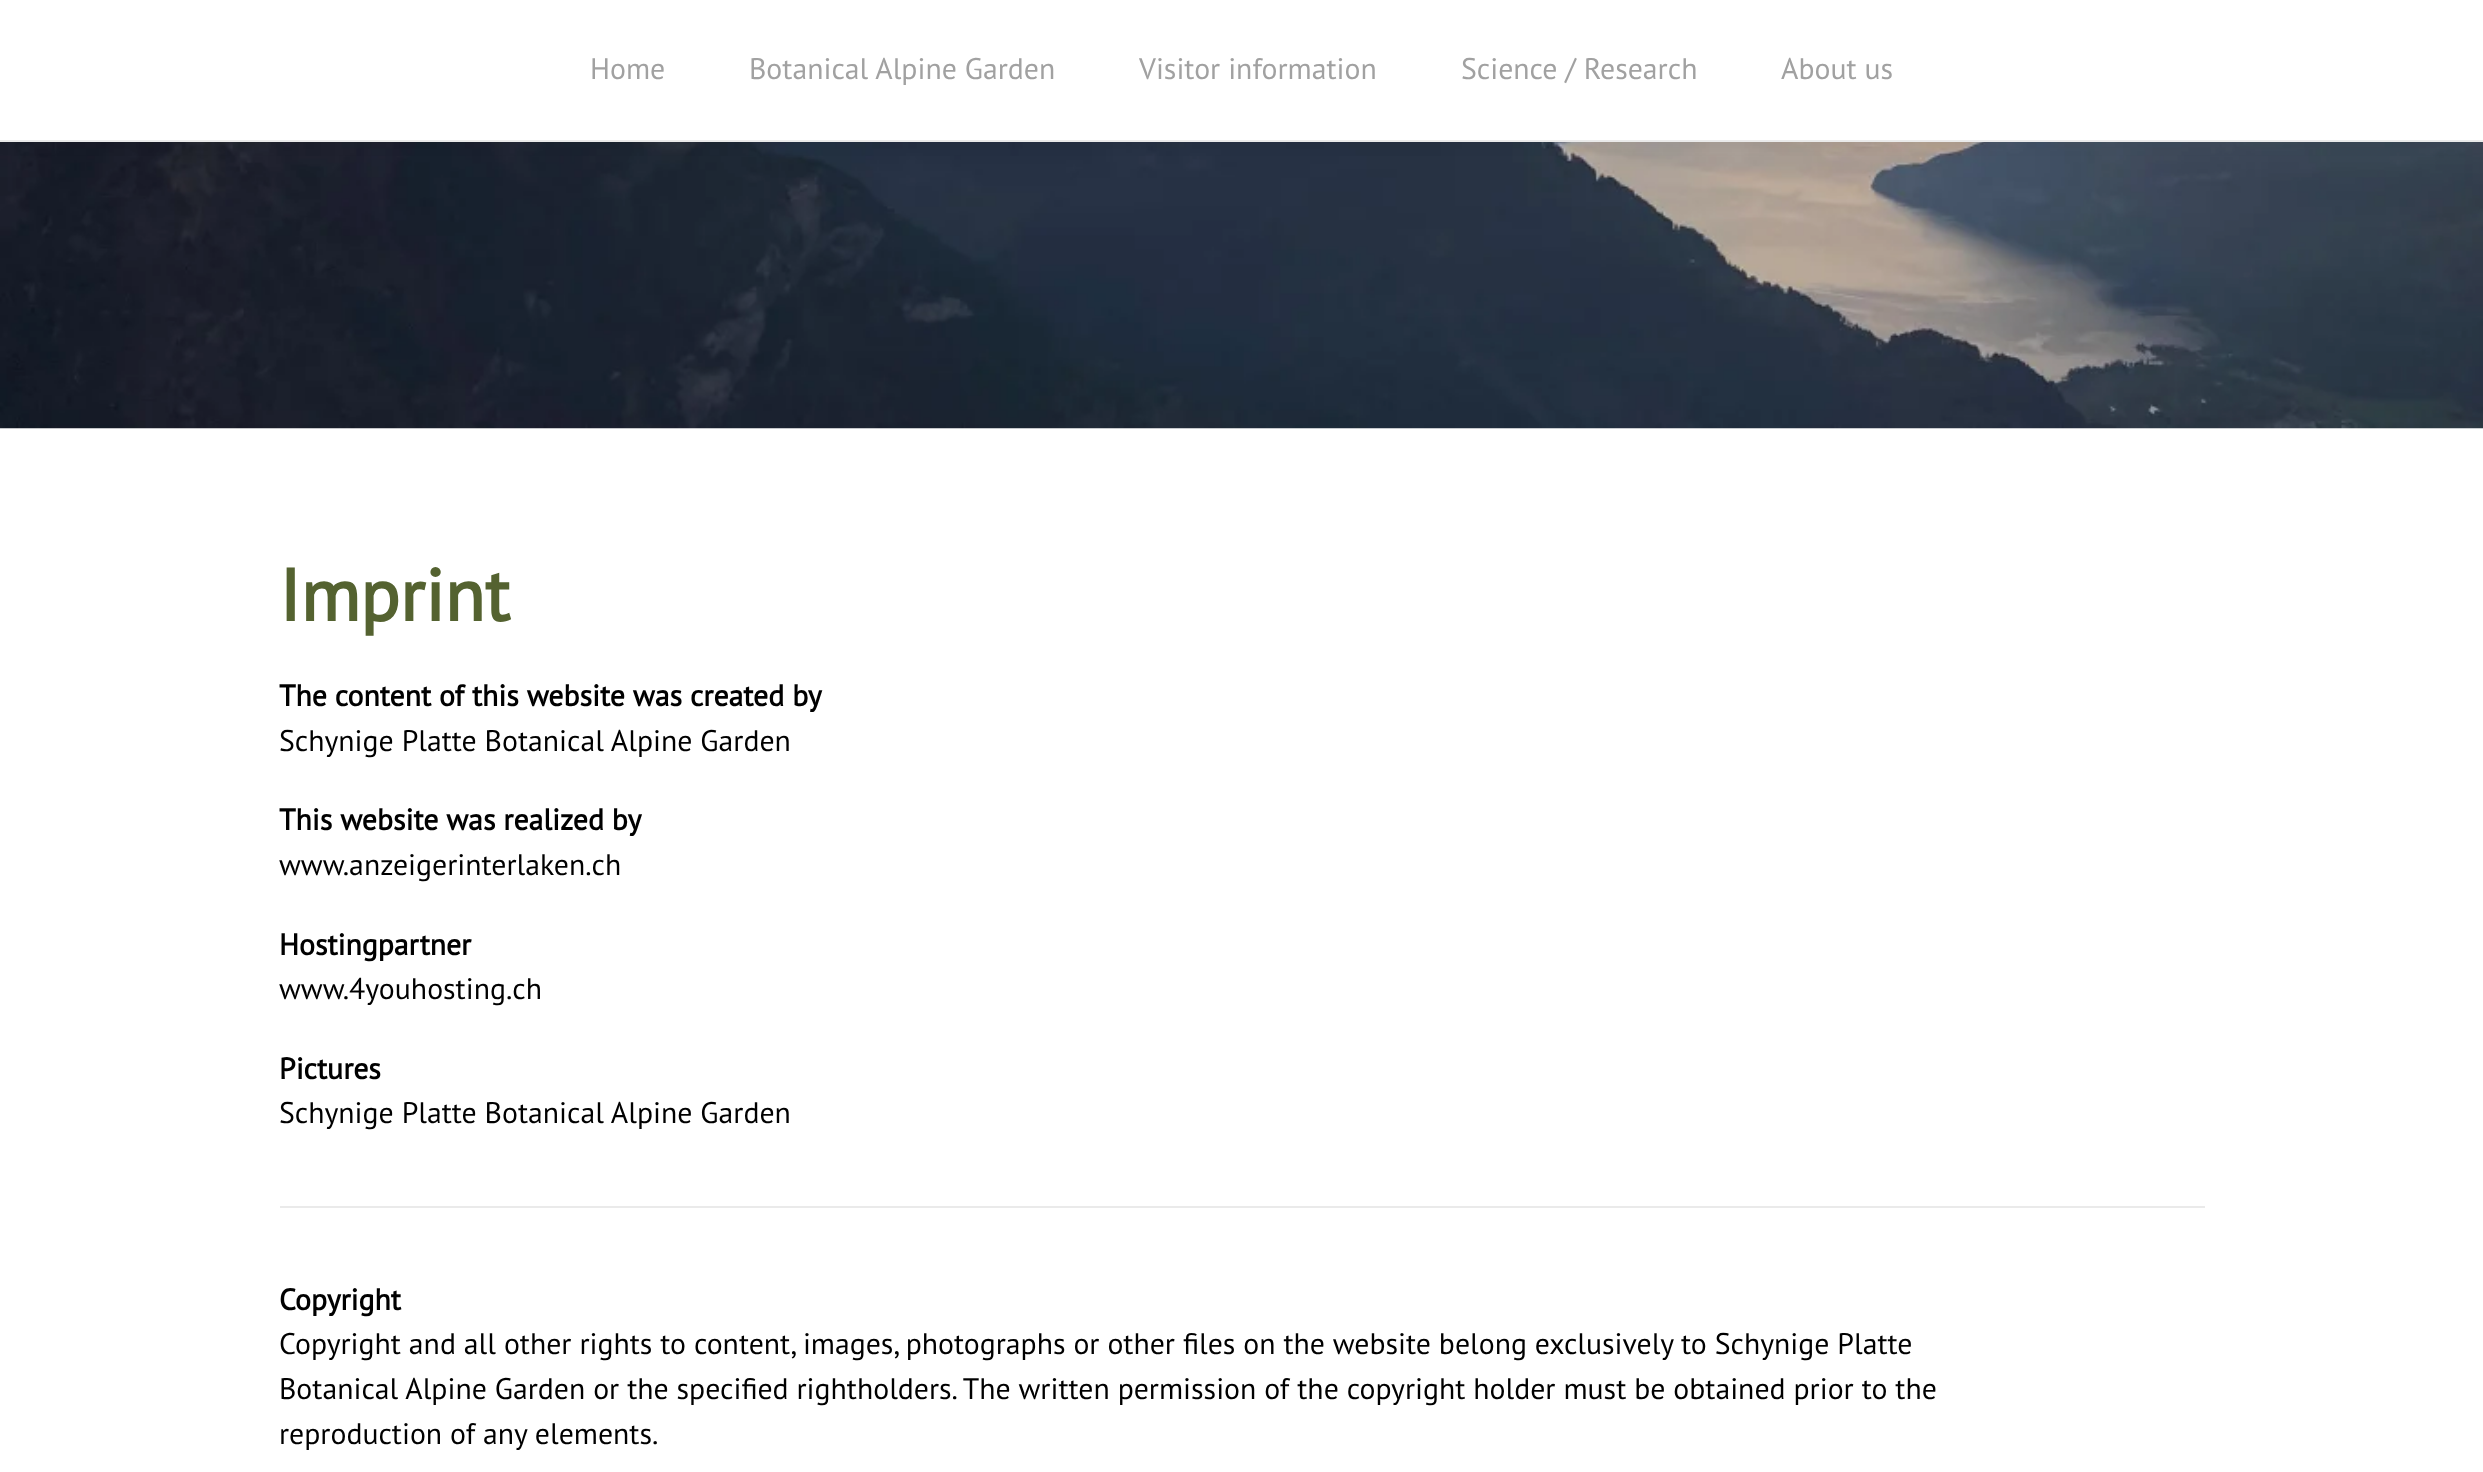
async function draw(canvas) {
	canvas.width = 2483;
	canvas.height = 1472;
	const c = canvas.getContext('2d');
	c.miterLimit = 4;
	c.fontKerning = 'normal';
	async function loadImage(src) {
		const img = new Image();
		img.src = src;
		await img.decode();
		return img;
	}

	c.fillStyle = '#fff';
	c.fillRect(0, 0, 2483, 1472);
	c.drawImage(await loadImage('img1.png'), 0, 142, 2483, 287);
	c.fillStyle = '#0000000a';
	c.filter = 'blur(7px)';
	c.beginPath();
	c.rect(0, 4, 2483, 141);
	c.fill();
	c.filter = 'none';
	c.fillStyle = '#fff';
	c.fillRect(0, 0, 2483, 140);
	c.fillStyle = '#eaeaea';
	c.fillRect(0, 140, 2483, 2);
	c.font = '29.75px PT Sans';
	c.fillStyle = '#a1a1a1';
	for (const [text, x, y] of [
		['Home', 590, 79],
		['Botanical Alpine Garden', 749, 79],
		['Visitor information', 1139, 79],
		['Science / Research', 1461, 79],
		['About us', 1781, 79],
	]) {
		c.fillText(text, x, y);
	}
	c.font = 'bold 73.5px PT Sans';
	c.fillStyle = '#546230';
	c.fillText('Imprint', 279, 621);
	c.font = 'bold 29.75px PT Sans';
	c.fillStyle = '#000';
	c.fillText('The content of this website was created by', 279, 706);
	c.font = '29.75px PT Sans';
	c.fillText('Schynige Platte Botanical Alpine Garden', 279, 751);
	c.font = 'bold 29.75px PT Sans';
	c.fillText('This website was realized by', 279, 830);
	c.font = '29.75px PT Sans';
	c.fillText('www.anzeigerinterlaken.ch', 279, 875);
	c.font = 'bold 29.75px PT Sans';
	c.fillText('Hostingpartner', 279, 955);
	c.font = '29.75px PT Sans';
	c.fillText('www.4youhosting.ch', 279, 999);
	c.font = 'bold 29.75px PT Sans';
	c.fillText('Pictures', 279, 1079);
	c.font = '29.75px PT Sans';
	c.fillText('Schynige Platte Botanical Alpine Garden', 279, 1123);
	c.fillStyle = '#eaeaea';
	c.fillRect(280, 1206, 1925, 2);
	c.font = 'bold 29.75px PT Sans';
	c.fillStyle = '#000';
	c.fillText('Copyright', 279, 1310);
	c.font = '29.75px PT Sans';
	for (const [text, x, y] of [
		['Copyright and all other rights to content, images, photographs or other files on the website belong exclusively to Schynige Platte', 279, 1354],
		['Botanical Alpine Garden or the specified rightholders. The written permission of the copyright holder must be obtained prior to the', 279, 1399],
		['reproduction of any elements.', 279, 1444],
	]) {
		c.fillText(text, x, y);
	}
}

draw(document.querySelector('canvas'));
